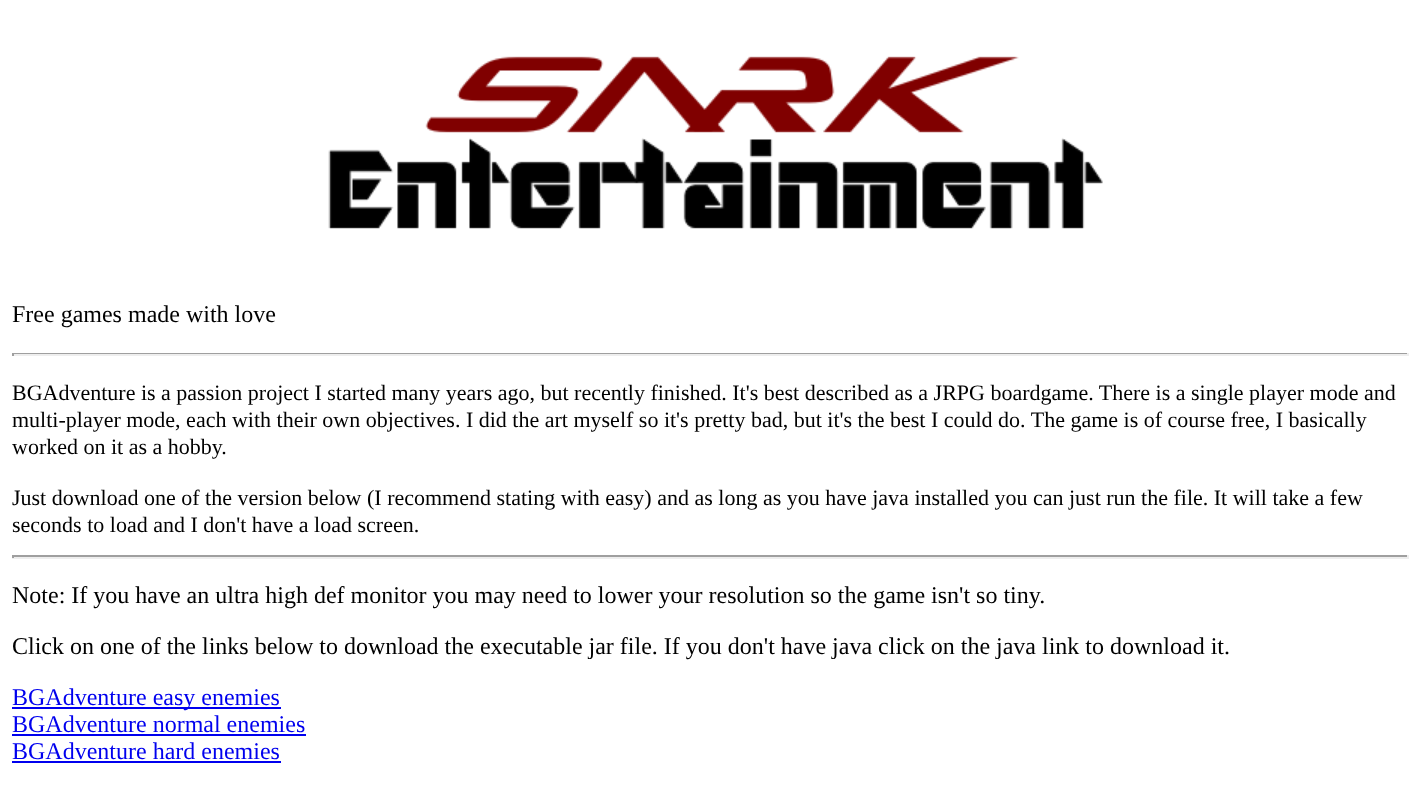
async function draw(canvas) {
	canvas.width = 1420;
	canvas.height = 795;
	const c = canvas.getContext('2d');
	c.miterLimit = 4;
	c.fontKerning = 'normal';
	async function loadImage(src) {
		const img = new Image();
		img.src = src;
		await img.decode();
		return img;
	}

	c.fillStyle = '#fff';
	c.fillRect(0, 0, 1420, 795);
	c.drawImage(await loadImage('img1.png'), 328, 56, 775, 173);
	c.font = '24px Liberation Serif';
	c.fillStyle = '#000';
	c.fillText('Free games made with love', 12, 322);
	for (const [x, y, w, h, color] of [
		[12, 353, 1397, 1, '#9f9f9f'],
		[1407, 353, 2, 3, '#eee'],
		[12, 354, 1397, 2, '#eee'],
		[12, 353, 2, 3, '#9f9f9f'],
	]) {
		c.fillStyle = color;
		c.fillRect(x, y, w, h);
	}
	c.font = '22px Liberation Serif';
	c.fillStyle = '#000';
	for (const [text, x, y] of [
		['BGAdventure is a passion project I started many years ago, but recently finished. It\'s best described as a JRPG boardgame. There is a single player mode and', 12, 400],
		['multi-player mode, each with their own objectives. I did the art myself so it\'s pretty bad, but it\'s the best I could do. The game is of course free, I basically', 12, 427],
		['worked on it as a hobby.', 12, 454],
		['Just download one of the version below (I recommend stating with easy) and as long as you have java installed you can just run the file. It will take a few', 12, 505],
		['seconds to load and I don\'t have a load screen.', 12, 532],
	]) {
		c.fillText(text, x, y);
	}
	for (const [x, y, w, h, color] of [
		[12, 555, 1397, 2, '#9f9f9f'],
		[1407, 555, 2, 3, '#eee'],
		[12, 557, 1397, 2, '#eee'],
		[12, 555, 2, 3, '#9f9f9f'],
	]) {
		c.fillStyle = color;
		c.fillRect(x, y, w, h);
	}
	c.font = '24px Liberation Serif';
	c.fillStyle = '#000';
	c.fillText('Note: If you have an ultra high def monitor you may need to lower your resolution so the game isn\'t so tiny.', 12, 603);
	c.fillText('Click on one of the links below to download the executable jar file. If you don\'t have java click on the java link to download it.', 12, 654);
	c.fillStyle = '#00e';
	c.fillRect(12, 707, 269, 2);
	c.fillText('BGAdventure easy enemies', 12, 705);
	c.fillText('BGAdventure normal enemies', 12, 732);
	c.fillRect(12, 734, 294, 2);
	c.fillText('BGAdventure hard enemies', 12, 759);
	c.fillRect(12, 761, 269, 2);
}

draw(document.querySelector('canvas'));
